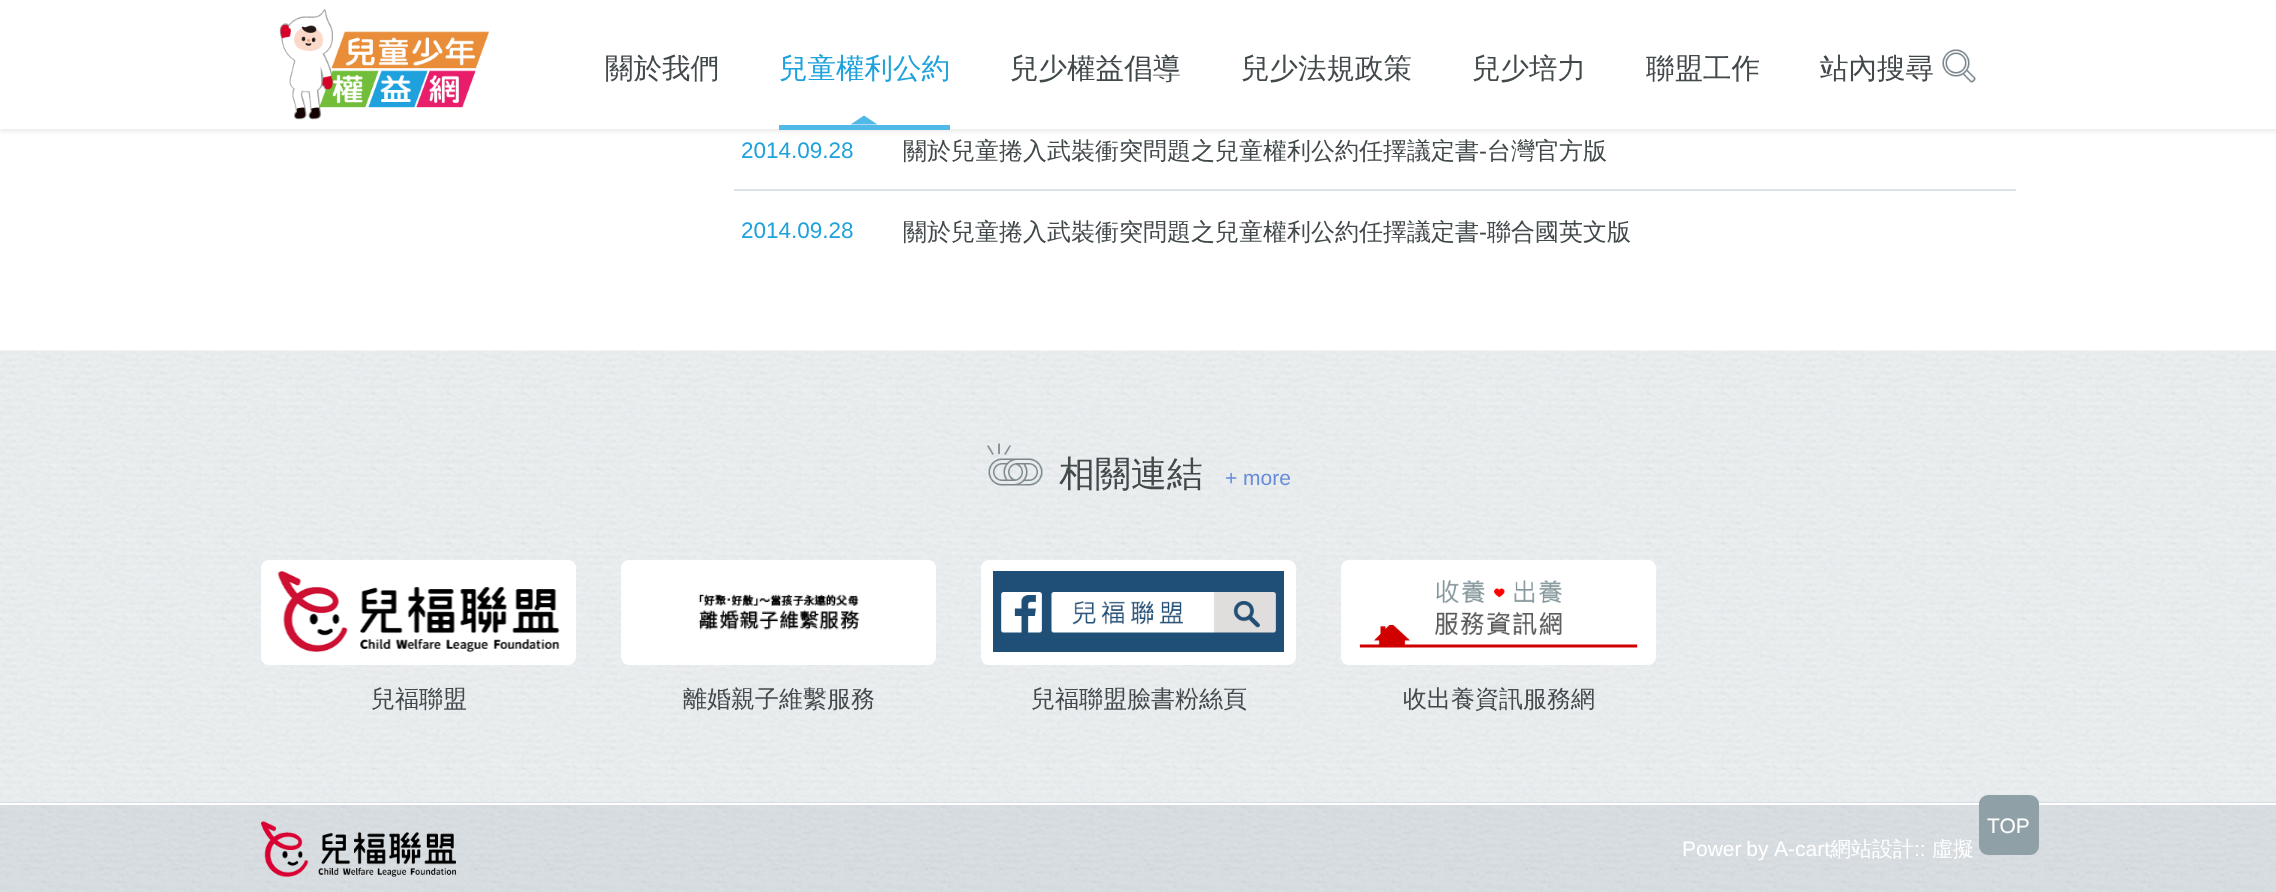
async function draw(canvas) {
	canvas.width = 2276;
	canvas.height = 892;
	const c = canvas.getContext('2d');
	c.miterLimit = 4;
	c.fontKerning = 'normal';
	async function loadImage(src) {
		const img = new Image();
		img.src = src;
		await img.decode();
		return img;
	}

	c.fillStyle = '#fff';
	c.fillRect(0, 0, 2276, 892);
	c.fillStyle = '#42494b1a';
	c.filter = 'blur(2px)';
	c.beginPath();
	c.rect(0, 3, 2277, 129);
	c.fill();
	c.filter = 'none';
	c.fillStyle = '#fff';
	c.fillRect(0, 1, 2276, 128);
	c.drawImage(await loadImage('img1.png'), 279, 8, 210, 112);
	c.font = '500 28.5px WenQuanYi Zen Hei';
	c.fillStyle = '#42494b';
	c.fillText('關於我們', 605, 78);
	c.fillStyle = '#1ea1dc';
	c.fillText('兒童權利公約', 779, 78);
	c.fillStyle = '#50b9e8';
	c.beginPath();
	c.moveTo(877.5, 124.5);
	c.lineTo(850.5, 124.5);
	c.lineTo(864, 115.5);
	c.closePath();
	c.fill();
	c.fillRect(779, 125, 171, 5);
	c.fillStyle = '#42494b';
	for (const [text, x, y] of [
		['兒少權益倡導', 1010, 78],
		['兒少法規政策', 1241, 78],
		['兒少培力', 1472, 78],
		['聯盟工作', 1646, 78],
		['站內搜尋', 1820, 78],
	]) {
		c.fillText(text, x, y);
	}
	c.drawImage(await loadImage('img2.png'), 1942, 49, 34, 34);
	c.font = '22.5px Liberation Sans';
	c.fillStyle = '#1ea1dc';
	c.fillText('2014.09.28', 741, 158);
	c.font = '500 24px WenQuanYi Zen Hei';
	c.fillStyle = '#42494b';
	c.fillText('關於兒童捲入武裝衝突問題之兒童權利公約任擇議定書', 903, 159);
	c.font = '24px Liberation Sans';
	c.fillText('-', 1479, 159);
	c.font = '500 24px WenQuanYi Zen Hei';
	c.fillText('台灣官方版', 1487, 159);
	c.fillStyle = '#dce2e5';
	c.fillRect(734, 189, 1282, 2);
	c.font = '22.5px Liberation Sans';
	c.fillStyle = '#1ea1dc';
	c.fillText('2014.09.28', 741, 238);
	c.font = '500 24px WenQuanYi Zen Hei';
	c.fillStyle = '#42494b';
	c.fillText('關於兒童捲入武裝衝突問題之兒童權利公約任擇議定書', 903, 240);
	c.font = '24px Liberation Sans';
	c.fillText('-', 1479, 240);
	c.font = '500 24px WenQuanYi Zen Hei';
	c.fillText('聯合國英文版', 1487, 240);
	c.drawImage(await loadImage('img3.png'), 0, 350, 2276, 452);
	c.drawImage(await loadImage('img4.png'), 987, 443, 56, 43);
	c.font = '500 36px WenQuanYi Zen Hei';
	c.fillText('相關連結', 1059, 486);
	c.font = '21px Liberation Sans';
	c.fillStyle = '#658cd8';
	c.fillText('+ more', 1225, 485);
	c.fillStyle = '#fff';
	c.beginPath();
	c.roundRect(267, 566, 303, 93, 2);
	c.fill();
	c.strokeStyle = '#fff';
	c.lineWidth = 12;
	c.stroke();
	c.drawImage(await loadImage('img5.png'), 278, 571, 282, 81);
	c.font = '500 24px WenQuanYi Zen Hei';
	c.fillStyle = '#42494b';
	c.fillText('兒福聯盟', 371, 707);
	c.fillStyle = '#fff';
	c.beginPath();
	c.roundRect(627, 566, 303, 93, 2);
	c.fill();
	c.stroke();
	c.drawImage(await loadImage('img6.png'), 695, 591, 165, 41);
	c.fillStyle = '#42494b';
	c.fillText('離婚親子維繫服務', 683, 707);
	c.fillStyle = '#fff';
	c.beginPath();
	c.roundRect(987, 566, 303, 93, 2);
	c.fill();
	c.stroke();
	c.drawImage(await loadImage('img7.png'), 993, 571, 291, 81);
	c.fillStyle = '#42494b';
	c.fillText('兒福聯盟臉書粉絲頁', 1031, 707);
	c.fillStyle = '#fff';
	c.beginPath();
	c.roundRect(1347, 566, 303, 93, 2);
	c.fill();
	c.stroke();
	c.drawImage(await loadImage('img8.png'), 1359, 580, 279, 68);
	c.fillStyle = '#42494b';
	c.fillText('收出養資訊服務網', 1403, 707);
	c.drawImage(await loadImage('img9.png'), 0, 802, 2276, 90);
	c.fillStyle = '#fff';
	c.fillRect(0, 803, 2276, 2);
	c.fillStyle = '#8fa0a7';
	c.beginPath();
	c.roundRect(1979, 795, 60, 60, 9);
	c.fill();
	c.font = '21px Liberation Sans';
	c.fillStyle = '#fff';
	c.fillText('TOP', 1987, 833);
	c.drawImage(await loadImage('img10.png'), 261, 821, 195, 56);
	c.wordSpacing = '-1px';
	c.fillText('Power by', 1682, 856);
	c.wordSpacing = '0px';
	c.fillText('A-cart', 1774, 856);
	c.font = '500 21px WenQuanYi Zen Hei';
	c.fillText('網站設計', 1830, 856);
	c.font = '21px Liberation Sans';
	c.fillText('::', 1914, 856);
	c.font = '500 21px WenQuanYi Zen Hei';
	c.fillText('虛擬', 1932, 856);
}

draw(document.querySelector('canvas'));
